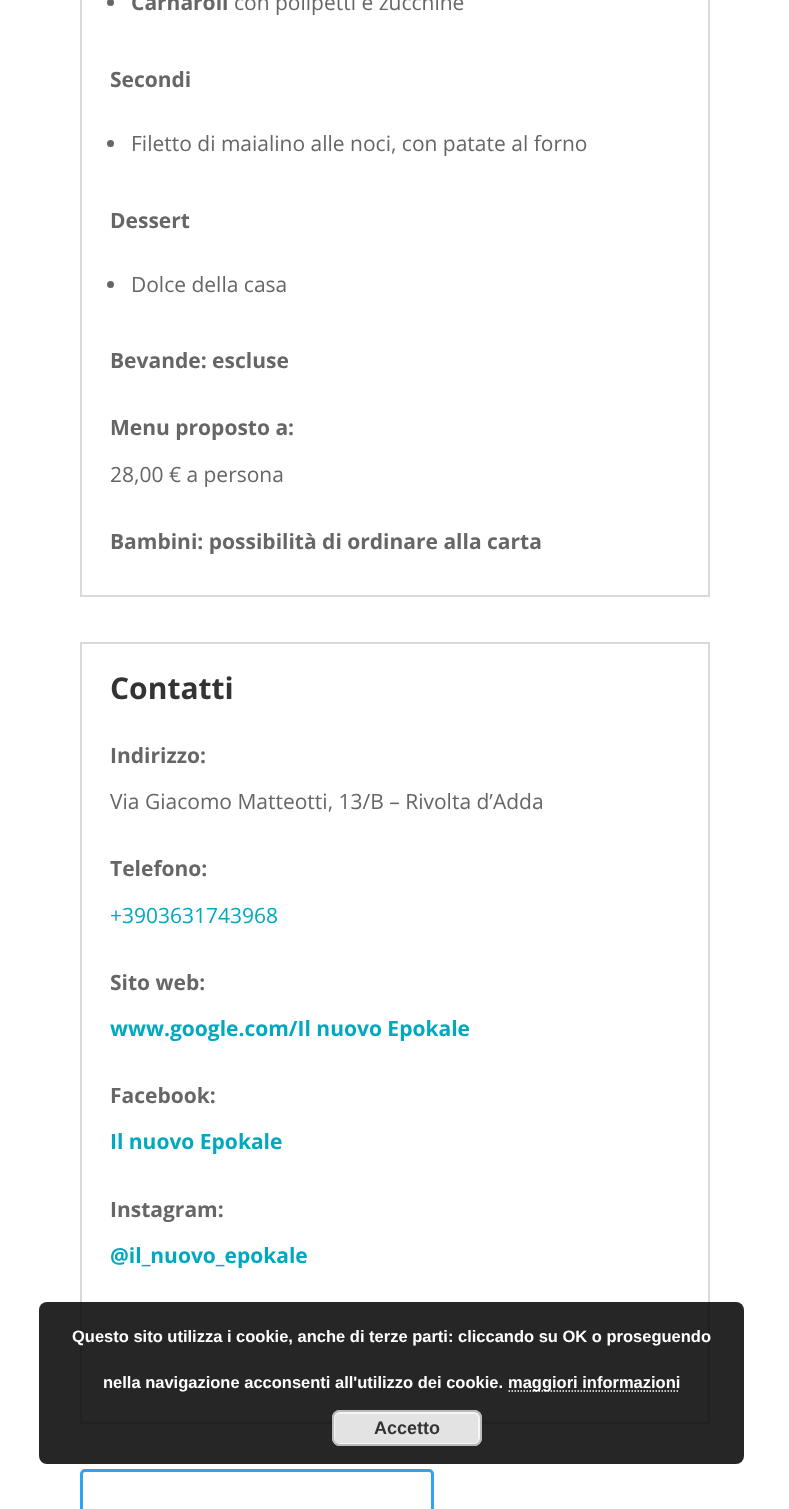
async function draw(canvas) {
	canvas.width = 789;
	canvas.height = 1509;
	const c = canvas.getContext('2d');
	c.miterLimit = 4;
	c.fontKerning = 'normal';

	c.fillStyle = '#fff';
	c.fillRect(0, 0, 789, 1509);
	c.strokeStyle = '#d9d9d9';
	c.lineWidth = 2;
	c.strokeRect(81, -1, 628, 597);
	c.fillStyle = '#666';
	c.beginPath();
	c.arc(110.5, 2.5, 3.5, 0, 2 * Math.PI);
	c.fill();
	c.font = 'bold 21px Open Sans';
	c.fillText('Carnaroli', 131, 10);
	c.font = '21px Open Sans';
	c.fillText('con polipetti e zucchine', 234, 10);
	c.font = 'bold 21px Open Sans';
	c.fillText('Secondi', 110, 87);
	c.beginPath();
	c.arc(110.5, 143.5, 3.5, 0, 2 * Math.PI);
	c.fill();
	c.font = '21px Open Sans';
	c.fillText('Filetto di maialino alle noci, con patate al forno', 131, 151);
	c.font = 'bold 21px Open Sans';
	c.fillText('Dessert', 110, 228);
	c.beginPath();
	c.arc(110.5, 284.5, 3.5, 0, 2 * Math.PI);
	c.fill();
	c.font = '21px Open Sans';
	c.fillText('Dolce della casa', 131, 292);
	c.font = 'bold 21px Open Sans';
	c.fillText('Bevande: escluse', 110, 368);
	c.fillText('Menu proposto a:', 110, 435);
	c.font = '21px Open Sans';
	c.fillText('28,00 € a persona', 110, 482);
	c.font = 'bold 21px Open Sans';
	c.fillText('Bambini: possibilità di ordinare alla carta', 110, 549);
	c.strokeRect(81, 643, 628, 780);
	c.font = 'bold 30px Open Sans';
	c.fillStyle = '#333';
	c.fillText('Contatti', 110, 699);
	c.font = 'bold 21px Open Sans';
	c.fillStyle = '#666';
	c.fillText('Indirizzo:', 110, 763);
	c.font = '21px Open Sans';
	c.fillText('Via Giacomo Matteotti, 13/B – Rivolta d’Adda', 110, 809);
	c.font = 'bold 21px Open Sans';
	c.fillText('Telefono:', 110, 876);
	c.font = '21px Open Sans';
	c.fillStyle = '#00a9c0';
	c.fillText('+3903631743968', 110, 923);
	c.font = 'bold 21px Open Sans';
	c.fillStyle = '#666';
	c.fillText('Sito web:', 110, 990);
	c.fillStyle = '#00a9c0';
	c.fillText('www.google.com/Il nuovo Epokale', 110, 1036);
	c.fillStyle = '#666';
	c.fillText('Facebook:', 110, 1103);
	c.fillStyle = '#00a9c0';
	c.fillText('Il nuovo Epokale', 110, 1149);
	c.fillStyle = '#666';
	c.fillText('Instagram:', 110, 1217);
	c.fillStyle = '#00a9c0';
	c.fillText('@il_nuovo_epokale', 110, 1263);
	c.beginPath();
	c.roundRect(81.5, 1470.5, 351, 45, 3.5);
	c.strokeStyle = '#2ea3f2';
	c.lineWidth = 3;
	c.stroke();
	c.fillStyle = '#000000d9';
	c.beginPath();
	c.roundRect(39, 1302, 705, 162, 8);
	c.fill();
	c.font = 'bold 16.5px Liberation Sans';
	c.fillStyle = '#fff';
	c.fillText('Questo sito utilizza i cookie, anche di terze parti: cliccando su OK o proseguendo', 72, 1342);
	c.fillText('nella navigazione acconsenti all\'utilizzo dei cookie.', 103, 1388);
	c.beginPath();
	c.moveTo(508.5, 1391);
	c.lineTo(679.5, 1391);
	c.strokeStyle = '#fff';
	c.lineWidth = 1.5;
	c.setLineDash([1.5, 1.5]);
	c.stroke();
	c.fillText('maggiori informazioni', 508, 1388);
	c.fillStyle = '#e3e3e3';
	c.beginPath();
	c.roundRect(332, 1410, 150, 36, 8);
	c.fill();
	c.beginPath();
	c.roundRect(334, 1413, 145, 31, 5);
	c.strokeStyle = '#f6f6f6';
	c.lineWidth = 2;
	c.setLineDash([]);
	c.stroke();
	c.beginPath();
	c.roundRect(333, 1411, 148, 34, 7);
	c.strokeStyle = '#bbb';
	c.stroke();
	c.font = 'bold 18px Liberation Sans';
	c.fillStyle = '#333';
	c.fillText('Accetto', 374, 1434);
}

draw(document.querySelector('canvas'));
